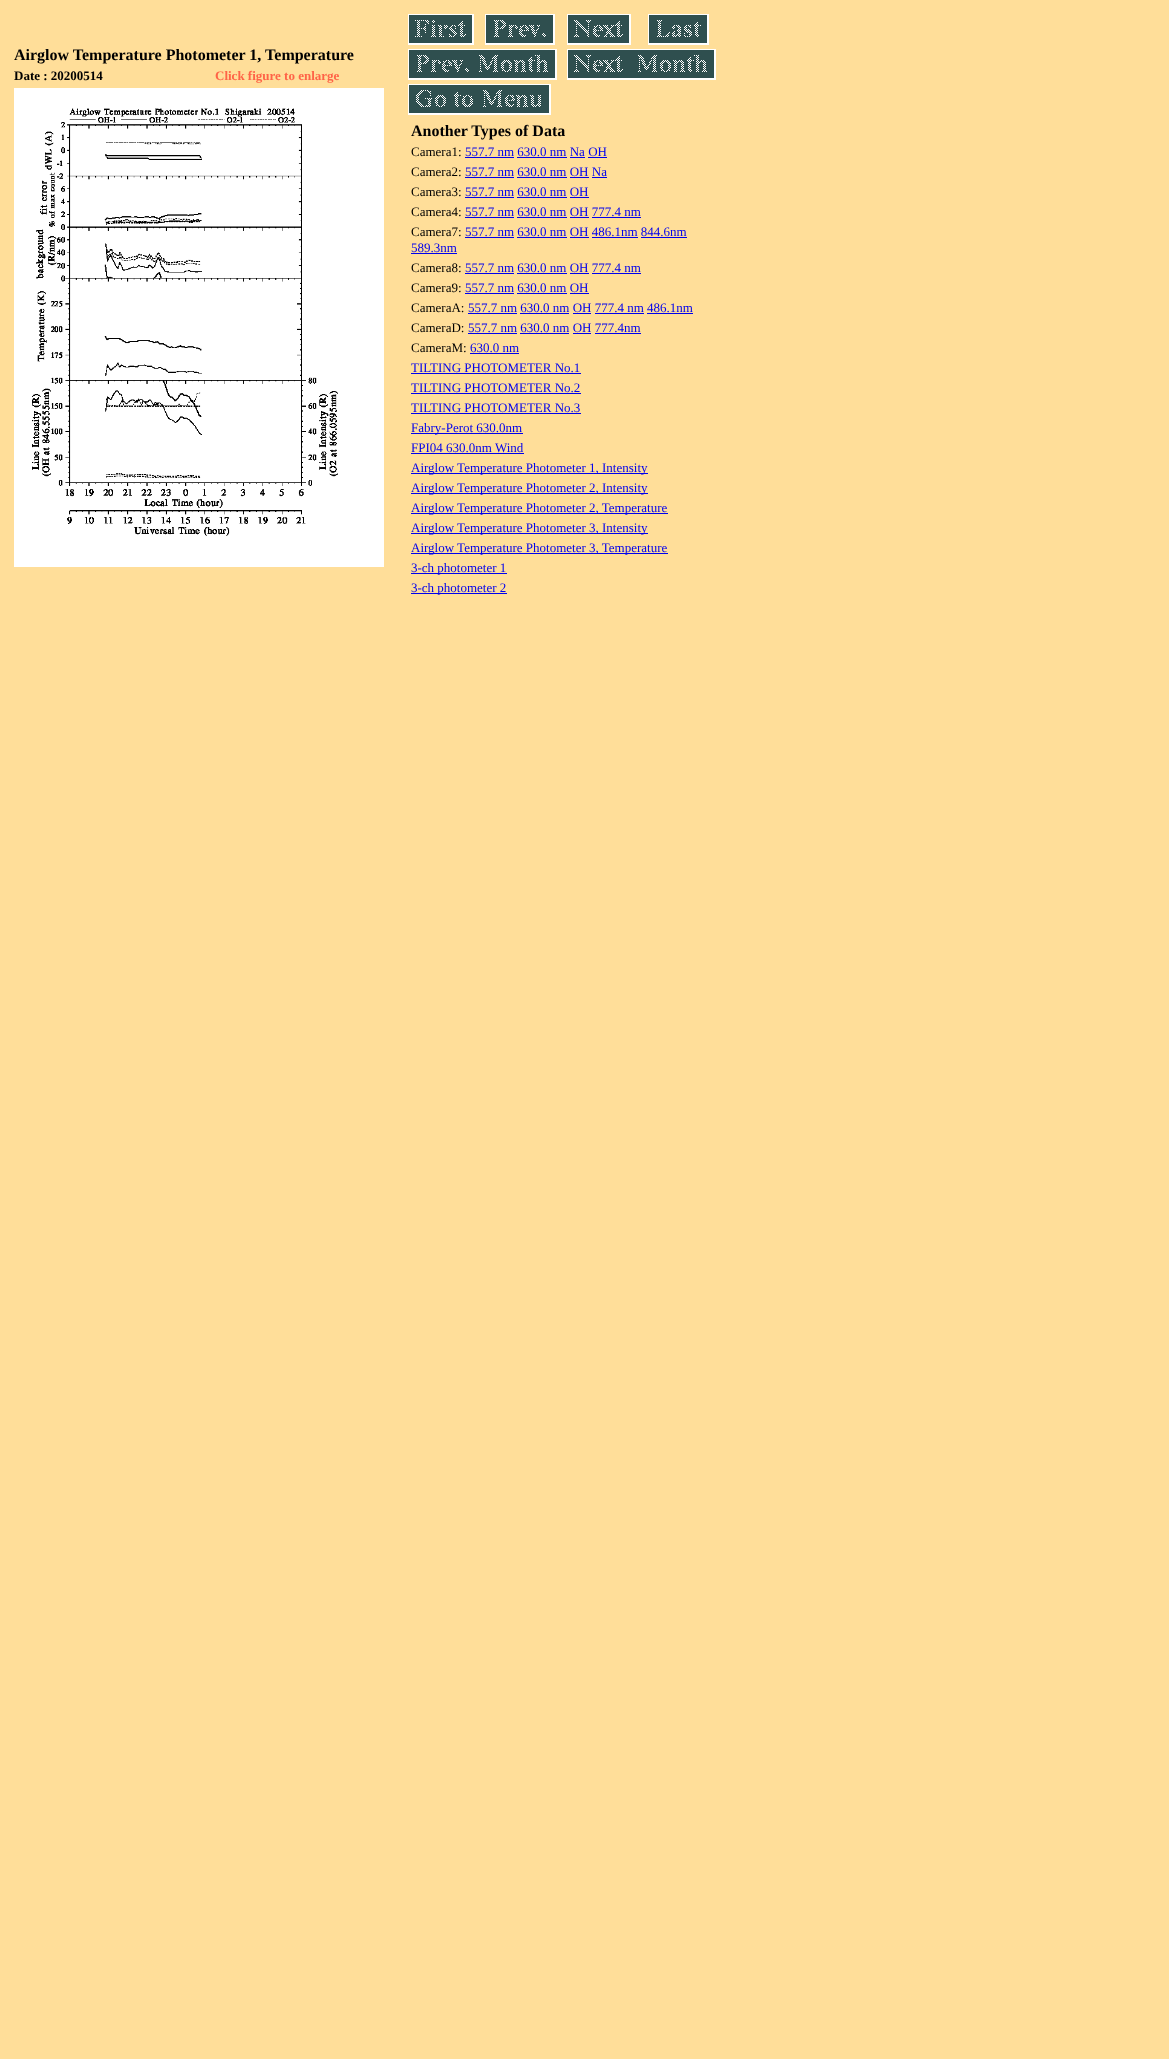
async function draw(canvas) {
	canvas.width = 1169;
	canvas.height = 2059;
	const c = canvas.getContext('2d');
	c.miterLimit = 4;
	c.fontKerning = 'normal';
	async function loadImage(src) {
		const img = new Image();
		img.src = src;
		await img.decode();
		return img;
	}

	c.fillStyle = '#ffde99';
	c.fillRect(0, 0, 1169, 2059);
	c.font = 'bold 16px Liberation Serif';
	c.fillStyle = '#000';
	c.fillText('Airglow Temperature Photometer 1, Temperature', 14, 60);
	c.font = 'bold 13px Liberation Serif';
	c.fillText('Date : 20200514', 14, 80);
	c.fillStyle = '#ff6347';
	c.fillText('Click figure to enlarge', 215, 80);
	c.drawImage(await loadImage('img1.png'), 14, 88, 370, 479);
	c.drawImage(await loadImage('img2.png'), 408, 14, 66, 31);
	c.drawImage(await loadImage('img3.png'), 485, 14, 70, 31);
	c.drawImage(await loadImage('img4.png'), 567, 14, 64, 31);
	c.drawImage(await loadImage('img5.png'), 648, 14, 61, 31);
	c.drawImage(await loadImage('img6.png'), 408, 49, 149, 31);
	c.drawImage(await loadImage('img7.png'), 567, 49, 149, 31);
	c.drawImage(await loadImage('img8.png'), 408, 84, 143, 31);
	c.font = 'bold 16px Liberation Serif';
	c.fillStyle = '#000';
	c.fillText('Another Types of Data', 411, 136);
	c.font = '13px Liberation Serif';
	c.fillText('Camera1:', 411, 156);
	c.fillStyle = '#00e';
	c.fillText('557.7 nm 630.0 nm Na OH', 465, 156);
	for (const [x, y, w, h, color] of [
		[465, 157, 49, 1, '#00e'],
		[517, 157, 50, 1, '#00e'],
		[570, 157, 15, 1, '#00e'],
		[588, 157, 19, 1, '#00e'],
	]) {
		c.fillStyle = color;
		c.fillRect(x, y, w, h);
	}
	c.fillStyle = '#000';
	c.fillText('Camera2:', 411, 176);
	c.fillStyle = '#00e';
	c.fillText('557.7 nm 630.0 nm OH Na', 465, 176);
	for (const [x, y, w, h, color] of [
		[465, 177, 49, 1, '#00e'],
		[517, 177, 50, 1, '#00e'],
		[570, 177, 19, 1, '#00e'],
		[592, 177, 15, 1, '#00e'],
	]) {
		c.fillStyle = color;
		c.fillRect(x, y, w, h);
	}
	c.fillStyle = '#000';
	c.fillText('Camera3:', 411, 196);
	c.fillStyle = '#00e';
	c.fillText('557.7 nm 630.0 nm OH', 465, 196);
	for (const [x, y, w, h, color] of [
		[465, 197, 49, 1, '#00e'],
		[517, 197, 50, 1, '#00e'],
		[570, 197, 19, 1, '#00e'],
	]) {
		c.fillStyle = color;
		c.fillRect(x, y, w, h);
	}
	c.fillStyle = '#000';
	c.fillText('Camera4:', 411, 216);
	c.fillStyle = '#00e';
	c.fillText('557.7 nm 630.0 nm OH 777.4 nm', 465, 216);
	for (const [x, y, w, h, color] of [
		[465, 217, 49, 1, '#00e'],
		[517, 217, 50, 1, '#00e'],
		[570, 217, 19, 1, '#00e'],
		[592, 217, 49, 1, '#00e'],
	]) {
		c.fillStyle = color;
		c.fillRect(x, y, w, h);
	}
	c.fillStyle = '#000';
	c.fillText('Camera7:', 411, 236);
	c.fillStyle = '#00e';
	c.fillText('557.7 nm 630.0 nm OH 486.1nm 844.6nm', 465, 236);
	for (const [x, y, w, h, color] of [
		[465, 237, 49, 1, '#00e'],
		[517, 237, 50, 1, '#00e'],
		[570, 237, 19, 1, '#00e'],
		[592, 237, 46, 1, '#00e'],
		[641, 237, 46, 1, '#00e'],
	]) {
		c.fillStyle = color;
		c.fillRect(x, y, w, h);
	}
	c.fillText('589.3nm', 411, 252);
	c.fillRect(411, 253, 46, 1);
	c.fillStyle = '#000';
	c.fillText('Camera8:', 411, 272);
	c.fillStyle = '#00e';
	c.fillText('557.7 nm 630.0 nm OH 777.4 nm', 465, 272);
	for (const [x, y, w, h, color] of [
		[465, 273, 49, 1, '#00e'],
		[517, 273, 50, 1, '#00e'],
		[570, 273, 19, 1, '#00e'],
		[592, 273, 49, 1, '#00e'],
	]) {
		c.fillStyle = color;
		c.fillRect(x, y, w, h);
	}
	c.fillStyle = '#000';
	c.fillText('Camera9:', 411, 292);
	c.fillStyle = '#00e';
	c.fillText('557.7 nm 630.0 nm OH', 465, 292);
	for (const [x, y, w, h, color] of [
		[465, 293, 49, 1, '#00e'],
		[517, 293, 50, 1, '#00e'],
		[570, 293, 19, 1, '#00e'],
	]) {
		c.fillStyle = color;
		c.fillRect(x, y, w, h);
	}
	c.fillStyle = '#000';
	c.fillText('CameraA:', 411, 312);
	c.fillStyle = '#00e';
	c.fillText('557.7 nm 630.0 nm OH 777.4 nm 486.1nm', 468, 312);
	for (const [x, y, w, h, color] of [
		[468, 313, 49, 1, '#00e'],
		[520, 313, 49, 1, '#00e'],
		[573, 313, 18, 1, '#00e'],
		[595, 313, 49, 1, '#00e'],
		[647, 313, 46, 1, '#00e'],
	]) {
		c.fillStyle = color;
		c.fillRect(x, y, w, h);
	}
	c.fillStyle = '#000';
	c.fillText('CameraD:', 411, 332);
	c.fillStyle = '#00e';
	c.fillText('557.7 nm 630.0 nm OH 777.4nm', 468, 332);
	for (const [x, y, w, h, color] of [
		[468, 333, 49, 1, '#00e'],
		[520, 333, 49, 1, '#00e'],
		[573, 333, 18, 1, '#00e'],
		[595, 333, 46, 1, '#00e'],
	]) {
		c.fillStyle = color;
		c.fillRect(x, y, w, h);
	}
	c.fillStyle = '#000';
	c.fillText('CameraM:', 411, 352);
	c.fillStyle = '#00e';
	c.fillText('630.0 nm', 470, 352);
	c.fillRect(470, 353, 49, 1);
	c.fillText('TILTING PHOTOMETER No.1', 411, 372);
	c.fillRect(411, 373, 170, 1);
	c.fillText('TILTING PHOTOMETER No.2', 411, 392);
	c.fillRect(411, 393, 170, 1);
	c.fillText('TILTING PHOTOMETER No.3', 411, 412);
	c.fillRect(411, 413, 170, 1);
	c.fillRect(411, 433, 112, 1);
	c.fillText('Fabry-Perot 630.0nm', 411, 432);
	c.fillText('FPI04 630.0nm Wind', 411, 452);
	c.fillRect(411, 453, 113, 1);
	c.fillRect(411, 473, 237, 1);
	c.fillText('Airglow Temperature Photometer 1, Intensity', 411, 472);
	c.fillRect(411, 493, 237, 1);
	c.fillText('Airglow Temperature Photometer 2, Intensity', 411, 492);
	c.fillRect(411, 513, 257, 1);
	c.fillText('Airglow Temperature Photometer 2, Temperature', 411, 512);
	c.fillRect(411, 533, 237, 1);
	c.fillText('Airglow Temperature Photometer 3, Intensity', 411, 532);
	c.fillRect(411, 553, 257, 1);
	c.fillText('Airglow Temperature Photometer 3, Temperature', 411, 552);
	c.fillRect(411, 573, 96, 1);
	c.fillText('3-ch photometer 1', 411, 572);
	c.fillRect(411, 593, 96, 1);
	c.fillText('3-ch photometer 2', 411, 592);
}

draw(document.querySelector('canvas'));
